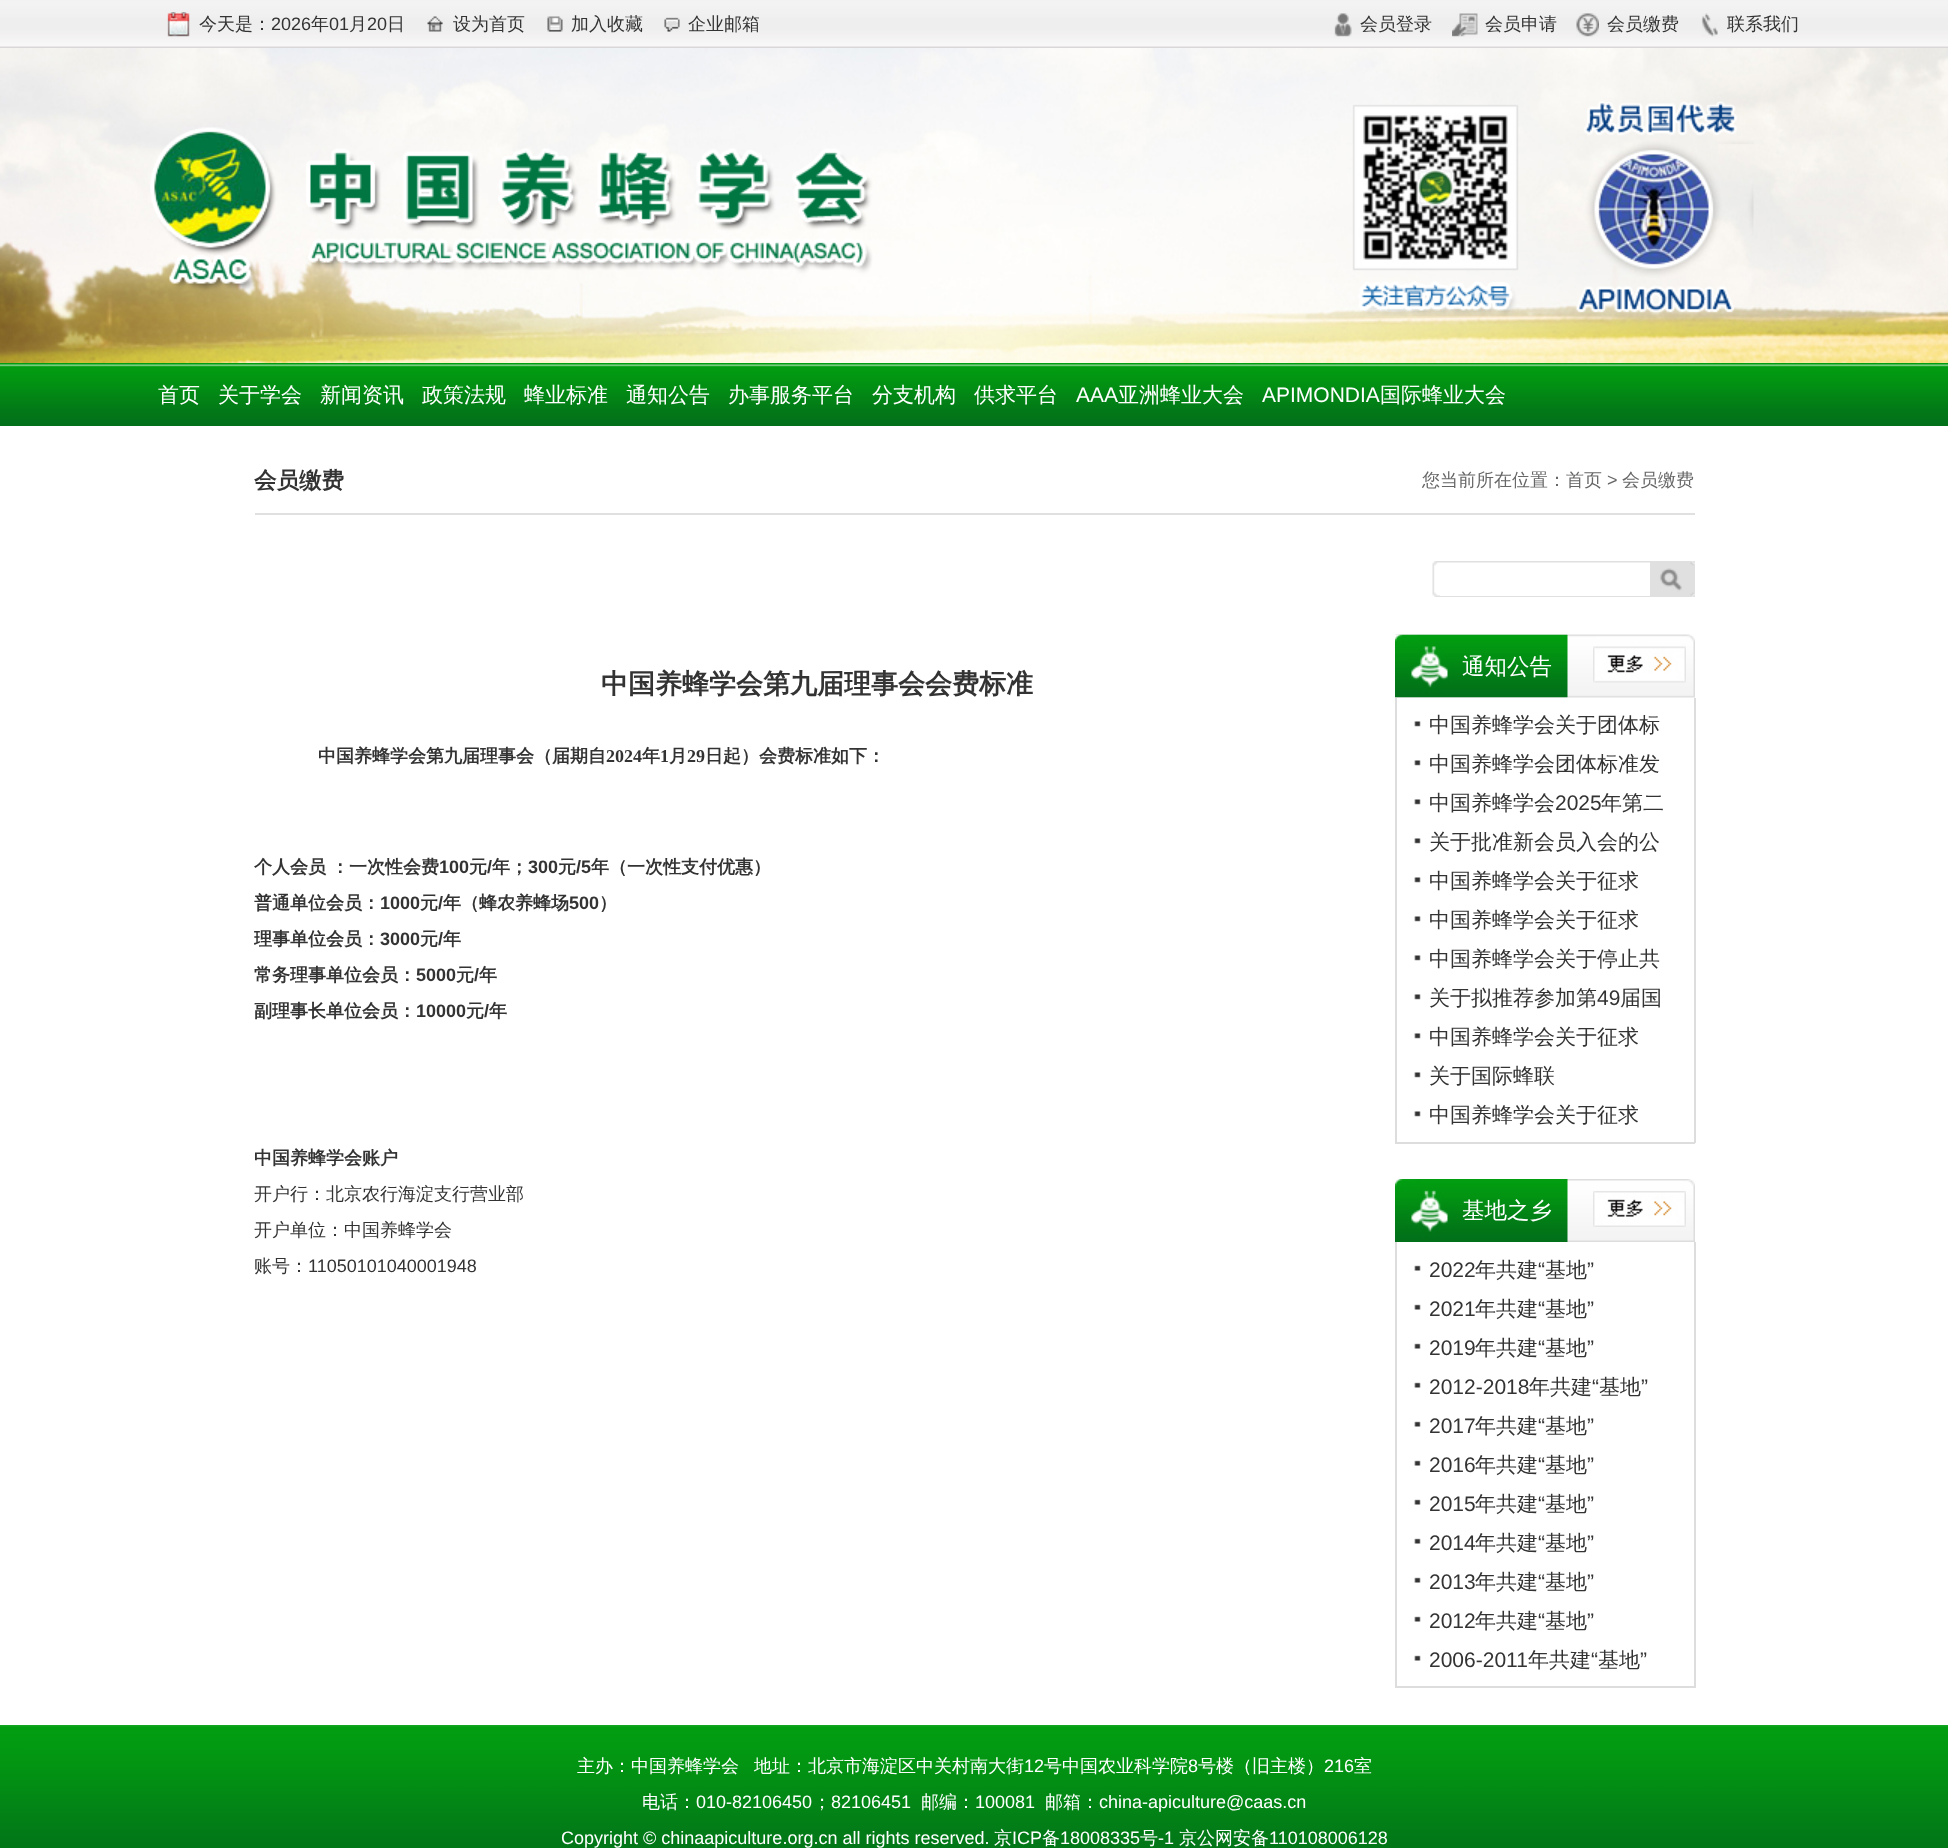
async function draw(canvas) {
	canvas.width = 1948;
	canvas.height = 1848;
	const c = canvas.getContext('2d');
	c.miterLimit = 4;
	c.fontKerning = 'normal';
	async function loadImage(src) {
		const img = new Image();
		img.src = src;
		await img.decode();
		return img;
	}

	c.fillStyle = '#fff';
	c.fillRect(0, 0, 1948, 1848);
	c.drawImage(await loadImage('img1.png'), 0, 0, 1948, 48);
	c.drawImage(await loadImage('img2.png'), 167, 12, 23, 25);
	c.font = '500 18px WenQuanYi Zen Hei';
	c.fillStyle = '#333';
	c.fillText('今天是：', 199, 30);
	c.font = '18px Liberation Sans';
	c.fillText('2026', 271, 30);
	c.font = '500 18px WenQuanYi Zen Hei';
	c.fillText('年', 311, 30);
	c.font = '18px Liberation Sans';
	c.fillText('01', 329, 30);
	c.font = '500 18px WenQuanYi Zen Hei';
	c.fillText('月', 349, 30);
	c.font = '18px Liberation Sans';
	c.fillText('20', 367, 30);
	c.font = '500 18px WenQuanYi Zen Hei';
	c.fillText('日', 387, 30);
	c.drawImage(await loadImage('img3.png'), 427, 16, 16, 16);
	c.fillText('设为首页', 453, 30);
	c.drawImage(await loadImage('img4.png'), 547, 16, 16, 16);
	c.fillText('加入收藏', 571, 30);
	c.drawImage(await loadImage('img5.png'), 664, 17, 16, 15);
	c.fillText('企业邮箱', 688, 30);
	c.drawImage(await loadImage('img6.png'), 1334, 13, 18, 24);
	c.fillText('会员登录', 1360, 30);
	c.drawImage(await loadImage('img7.png'), 1452, 13, 26, 24);
	c.fillText('会员申请', 1485, 30);
	c.drawImage(await loadImage('img8.png'), 1576, 13, 23, 24);
	c.fillText('会员缴费', 1607, 30);
	c.drawImage(await loadImage('img9.png'), 1701, 13, 17, 24);
	c.fillText('联系我们', 1727, 30);
	c.drawImage(await loadImage('img10.png'), 0, 48, 1948, 315);
	c.drawImage(await loadImage('img11.png'), 150, 101, 1604, 215);
	c.drawImage(await loadImage('img12.png'), 0, 363, 1948, 63);
	c.font = '500 21px WenQuanYi Zen Hei';
	c.fillStyle = '#fff';
	for (const [text, x, y] of [
		['首页', 158, 402],
		['关于学会', 218, 402],
		['新闻资讯', 320, 402],
		['政策法规', 422, 402],
		['蜂业标准', 524, 402],
		['通知公告', 626, 402],
		['办事服务平台', 728, 402],
		['分支机构', 872, 402],
		['供求平台', 974, 402],
	]) {
		c.fillText(text, x, y);
	}
	c.font = '21px Liberation Sans';
	c.fillText('AAA', 1076, 402);
	c.font = '500 21px WenQuanYi Zen Hei';
	c.fillText('亚洲蜂业大会', 1118, 402);
	c.font = '21px Liberation Sans';
	c.fillText('APIMONDIA', 1262, 402);
	c.font = '500 21px WenQuanYi Zen Hei';
	c.fillText('国际蜂业大会', 1380, 402);
	c.fillStyle = '#e0e0e0';
	c.fillRect(255, 513, 1440, 2);
	c.font = 'bold 22.5px WenQuanYi Zen Hei';
	c.fillStyle = '#333';
	c.fillText('会员缴费', 254, 488);
	c.font = '500 18px WenQuanYi Zen Hei';
	c.fillStyle = '#666';
	c.fillText('您当前所在位置：首页', 1422, 486);
	c.font = '18px Liberation Sans';
	c.fillText('>', 1607, 486);
	c.font = '500 18px WenQuanYi Zen Hei';
	c.fillText('会员缴费', 1622, 486);
	c.font = 'bold 27px WenQuanYi Zen Hei';
	c.fillStyle = '#333';
	c.fillText('中国养蜂学会第九届理事会会费标准', 601, 693);
	c.font = 'bold 18px WenQuanYi Zen Hei';
	c.fillText('中国养蜂学会第九届理事会（届期自', 318, 762);
	c.font = 'bold 18px Liberation Serif';
	c.fillText('2024', 606, 762);
	c.font = 'bold 18px WenQuanYi Zen Hei';
	c.fillText('年', 642, 762);
	c.font = 'bold 18px Liberation Serif';
	c.fillText('1', 660, 762);
	c.font = 'bold 18px WenQuanYi Zen Hei';
	c.fillText('月', 669, 762);
	c.font = 'bold 18px Liberation Serif';
	c.fillText('29', 687, 762);
	c.font = 'bold 18px WenQuanYi Zen Hei';
	for (const [text, x, y] of [
		['日起）会费标准如下：', 705, 762],
		['个人会员', 254, 873],
		['：一次性会费', 331, 873],
	]) {
		c.fillText(text, x, y);
	}
	c.font = 'bold 18px Liberation Sans';
	c.fillText('100', 439, 873);
	c.font = 'bold 18px WenQuanYi Zen Hei';
	c.fillText('元', 469, 873);
	c.font = 'bold 18px Liberation Sans';
	c.fillText('/', 487, 873);
	c.font = 'bold 18px WenQuanYi Zen Hei';
	c.fillText('年；', 492, 873);
	c.font = 'bold 18px Liberation Sans';
	c.fillText('300', 528, 873);
	c.font = 'bold 18px WenQuanYi Zen Hei';
	c.fillText('元', 558, 873);
	c.font = 'bold 18px Liberation Sans';
	c.fillText('/5', 576, 873);
	c.font = 'bold 18px WenQuanYi Zen Hei';
	c.fillText('年（一次性支付优惠）', 591, 873);
	c.fillText('普通单位会员：', 254, 909);
	c.font = 'bold 18px Liberation Sans';
	c.fillText('1000', 380, 909);
	c.font = 'bold 18px WenQuanYi Zen Hei';
	c.fillText('元', 420, 909);
	c.font = 'bold 18px Liberation Sans';
	c.fillText('/', 438, 909);
	c.font = 'bold 18px WenQuanYi Zen Hei';
	c.fillText('年（蜂农养蜂场', 443, 909);
	c.font = 'bold 18px Liberation Sans';
	c.fillText('500', 569, 909);
	c.font = 'bold 18px WenQuanYi Zen Hei';
	c.fillText('）', 599, 909);
	c.fillText('理事单位会员：', 254, 945);
	c.font = 'bold 18px Liberation Sans';
	c.fillText('3000', 380, 945);
	c.font = 'bold 18px WenQuanYi Zen Hei';
	c.fillText('元', 420, 945);
	c.font = 'bold 18px Liberation Sans';
	c.fillText('/', 438, 945);
	c.font = 'bold 18px WenQuanYi Zen Hei';
	c.fillText('年', 443, 945);
	c.fillText('常务理事单位会员：', 254, 981);
	c.font = 'bold 18px Liberation Sans';
	c.fillText('5000', 416, 981);
	c.font = 'bold 18px WenQuanYi Zen Hei';
	c.fillText('元', 456, 981);
	c.font = 'bold 18px Liberation Sans';
	c.fillText('/', 474, 981);
	c.font = 'bold 18px WenQuanYi Zen Hei';
	c.fillText('年', 479, 981);
	c.fillText('副理事长单位会员：', 254, 1017);
	c.font = 'bold 18px Liberation Sans';
	c.fillText('10000', 416, 1017);
	c.font = 'bold 18px WenQuanYi Zen Hei';
	c.fillText('元', 466, 1017);
	c.font = 'bold 18px Liberation Sans';
	c.fillText('/', 484, 1017);
	c.font = 'bold 18px WenQuanYi Zen Hei';
	c.fillText('年', 489, 1017);
	c.fillText('中国养蜂学会账户', 254, 1164);
	c.font = '500 18px WenQuanYi Zen Hei';
	for (const [text, x, y] of [
		['开户行：北京农行海淀支行营业部', 254, 1200],
		['开户单位：中国养蜂学会', 254, 1236],
		['账号：', 254, 1272],
	]) {
		c.fillText(text, x, y);
	}
	c.font = '18px Liberation Sans';
	c.fillText('11050101040001948', 308, 1272);
	c.drawImage(await loadImage('img13.png'), 1432, 561, 263, 36);
	c.fillStyle = '#fff';
	c.fillRect(1440, 595, 210, 1);
	c.drawImage(await loadImage('img14.png'), 1650, 561, 45, 36);
	c.drawImage(await loadImage('img15.png'), 1395, 634, 300, 64);
	c.drawImage(await loadImage('img16.png'), 1395, 634, 173, 64);
	c.font = '500 22.5px WenQuanYi Zen Hei';
	c.fillText('通知公告', 1462, 674);
	c.drawImage(await loadImage('img17.png'), 1593, 646, 93, 37);
	for (const [x, y, w, h, color] of [
		[1694, 698, 2, 445, '#ddd'],
		[1395, 1142, 300, 2, '#ddd'],
		[1395, 698, 2, 445, '#ddd'],
	]) {
		c.fillStyle = color;
		c.fillRect(x, y, w, h);
	}
	c.drawImage(await loadImage('img18.png'), 1414, 721, 7, 6);
	c.font = '500 21px WenQuanYi Zen Hei';
	c.fillStyle = '#333';
	c.fillText('中国养蜂学会关于团体标', 1429, 732);
	c.drawImage(await loadImage('img18.png'), 1414, 760, 7, 6);
	c.fillText('中国养蜂学会团体标准发', 1429, 771);
	c.drawImage(await loadImage('img18.png'), 1414, 799, 7, 6);
	c.fillText('中国养蜂学会', 1429, 810);
	c.font = '21px Liberation Sans';
	c.fillText('2025', 1555, 810);
	c.font = '500 21px WenQuanYi Zen Hei';
	c.fillText('年第二', 1601, 810);
	c.drawImage(await loadImage('img18.png'), 1414, 838, 7, 6);
	c.fillText('关于批准新会员入会的公', 1429, 849);
	c.drawImage(await loadImage('img18.png'), 1414, 877, 7, 6);
	c.fillText('中国养蜂学会关于征求', 1429, 888);
	c.drawImage(await loadImage('img18.png'), 1414, 916, 7, 6);
	c.fillText('中国养蜂学会关于征求', 1429, 927);
	c.drawImage(await loadImage('img18.png'), 1414, 955, 7, 6);
	c.fillText('中国养蜂学会关于停止共', 1429, 966);
	c.drawImage(await loadImage('img18.png'), 1414, 994, 7, 6);
	c.fillText('关于拟推荐参加第', 1429, 1005);
	c.font = '21px Liberation Sans';
	c.fillText('49', 1597, 1005);
	c.font = '500 21px WenQuanYi Zen Hei';
	c.fillText('届国', 1620, 1005);
	c.drawImage(await loadImage('img18.png'), 1414, 1033, 7, 6);
	c.fillText('中国养蜂学会关于征求', 1429, 1044);
	c.drawImage(await loadImage('img18.png'), 1414, 1072, 7, 6);
	c.fillText('关于国际蜂联', 1429, 1083);
	c.drawImage(await loadImage('img18.png'), 1414, 1111, 7, 6);
	c.fillText('中国养蜂学会关于征求', 1429, 1122);
	c.drawImage(await loadImage('img19.png'), 1567, 1179, 128, 63);
	c.drawImage(await loadImage('img20.png'), 1395, 1179, 173, 63);
	c.font = '500 22.5px WenQuanYi Zen Hei';
	c.fillStyle = '#fff';
	c.fillText('基地之乡', 1462, 1218);
	c.drawImage(await loadImage('img21.png'), 1593, 1191, 93, 36);
	for (const [x, y, w, h, color] of [
		[1694, 1242, 2, 446, '#ddd'],
		[1395, 1686, 300, 2, '#ddd'],
		[1395, 1242, 2, 446, '#ddd'],
	]) {
		c.fillStyle = color;
		c.fillRect(x, y, w, h);
	}
	c.drawImage(await loadImage('img22.png'), 1414, 1265, 7, 6);
	c.font = '21px Liberation Sans';
	c.fillStyle = '#333';
	c.fillText('2022', 1429, 1277);
	c.font = '500 21px WenQuanYi Zen Hei';
	c.fillText('年共建', 1475, 1277);
	c.font = '21px Liberation Sans';
	c.fillText('“', 1538, 1277);
	c.font = '500 21px WenQuanYi Zen Hei';
	c.fillText('基地', 1545, 1277);
	c.font = '21px Liberation Sans';
	c.fillText('”', 1587, 1277);
	c.drawImage(await loadImage('img22.png'), 1414, 1304, 7, 6);
	c.fillText('2021', 1429, 1316);
	c.font = '500 21px WenQuanYi Zen Hei';
	c.fillText('年共建', 1475, 1316);
	c.font = '21px Liberation Sans';
	c.fillText('“', 1538, 1316);
	c.font = '500 21px WenQuanYi Zen Hei';
	c.fillText('基地', 1545, 1316);
	c.font = '21px Liberation Sans';
	c.fillText('”', 1587, 1316);
	c.drawImage(await loadImage('img22.png'), 1414, 1343, 7, 6);
	c.fillText('2019', 1429, 1355);
	c.font = '500 21px WenQuanYi Zen Hei';
	c.fillText('年共建', 1475, 1355);
	c.font = '21px Liberation Sans';
	c.fillText('“', 1538, 1355);
	c.font = '500 21px WenQuanYi Zen Hei';
	c.fillText('基地', 1545, 1355);
	c.font = '21px Liberation Sans';
	c.fillText('”', 1587, 1355);
	c.drawImage(await loadImage('img22.png'), 1414, 1382, 7, 6);
	c.fillText('2012-2018', 1429, 1394);
	c.font = '500 21px WenQuanYi Zen Hei';
	c.fillText('年共建', 1529, 1394);
	c.font = '21px Liberation Sans';
	c.fillText('“', 1592, 1394);
	c.font = '500 21px WenQuanYi Zen Hei';
	c.fillText('基地', 1599, 1394);
	c.font = '21px Liberation Sans';
	c.fillText('”', 1641, 1394);
	c.drawImage(await loadImage('img22.png'), 1414, 1421, 7, 6);
	c.fillText('2017', 1429, 1433);
	c.font = '500 21px WenQuanYi Zen Hei';
	c.fillText('年共建', 1475, 1433);
	c.font = '21px Liberation Sans';
	c.fillText('“', 1538, 1433);
	c.font = '500 21px WenQuanYi Zen Hei';
	c.fillText('基地', 1545, 1433);
	c.font = '21px Liberation Sans';
	c.fillText('”', 1587, 1433);
	c.drawImage(await loadImage('img22.png'), 1414, 1460, 7, 6);
	c.fillText('2016', 1429, 1472);
	c.font = '500 21px WenQuanYi Zen Hei';
	c.fillText('年共建', 1475, 1472);
	c.font = '21px Liberation Sans';
	c.fillText('“', 1538, 1472);
	c.font = '500 21px WenQuanYi Zen Hei';
	c.fillText('基地', 1545, 1472);
	c.font = '21px Liberation Sans';
	c.fillText('”', 1587, 1472);
	c.drawImage(await loadImage('img22.png'), 1414, 1499, 7, 6);
	c.fillText('2015', 1429, 1511);
	c.font = '500 21px WenQuanYi Zen Hei';
	c.fillText('年共建', 1475, 1511);
	c.font = '21px Liberation Sans';
	c.fillText('“', 1538, 1511);
	c.font = '500 21px WenQuanYi Zen Hei';
	c.fillText('基地', 1545, 1511);
	c.font = '21px Liberation Sans';
	c.fillText('”', 1587, 1511);
	c.drawImage(await loadImage('img22.png'), 1414, 1538, 7, 6);
	c.fillText('2014', 1429, 1550);
	c.font = '500 21px WenQuanYi Zen Hei';
	c.fillText('年共建', 1475, 1550);
	c.font = '21px Liberation Sans';
	c.fillText('“', 1538, 1550);
	c.font = '500 21px WenQuanYi Zen Hei';
	c.fillText('基地', 1545, 1550);
	c.font = '21px Liberation Sans';
	c.fillText('”', 1587, 1550);
	c.drawImage(await loadImage('img22.png'), 1414, 1577, 7, 6);
	c.fillText('2013', 1429, 1589);
	c.font = '500 21px WenQuanYi Zen Hei';
	c.fillText('年共建', 1475, 1589);
	c.font = '21px Liberation Sans';
	c.fillText('“', 1538, 1589);
	c.font = '500 21px WenQuanYi Zen Hei';
	c.fillText('基地', 1545, 1589);
	c.font = '21px Liberation Sans';
	c.fillText('”', 1587, 1589);
	c.drawImage(await loadImage('img22.png'), 1414, 1616, 7, 6);
	c.fillText('2012', 1429, 1628);
	c.font = '500 21px WenQuanYi Zen Hei';
	c.fillText('年共建', 1475, 1628);
	c.font = '21px Liberation Sans';
	c.fillText('“', 1538, 1628);
	c.font = '500 21px WenQuanYi Zen Hei';
	c.fillText('基地', 1545, 1628);
	c.font = '21px Liberation Sans';
	c.fillText('”', 1587, 1628);
	c.drawImage(await loadImage('img22.png'), 1414, 1655, 7, 6);
	c.fillText('2006-2011', 1429, 1667);
	c.font = '500 21px WenQuanYi Zen Hei';
	c.fillText('年共建', 1528, 1667);
	c.font = '21px Liberation Sans';
	c.fillText('“', 1591, 1667);
	c.font = '500 21px WenQuanYi Zen Hei';
	c.fillText('基地', 1598, 1667);
	c.font = '21px Liberation Sans';
	c.fillText('”', 1640, 1667);
	c.drawImage(await loadImage('img23.png'), 0, 1725, 1948, 123);
	c.font = '500 18px WenQuanYi Zen Hei';
	c.fillStyle = '#fff';
	c.fillText('主办：中国养蜂学会', 577, 1772);
	c.fillText('地址：北京市海淀区中关村南大街', 754, 1772);
	c.font = '18px Liberation Sans';
	c.fillText('12', 1024, 1772);
	c.font = '500 18px WenQuanYi Zen Hei';
	c.fillText('号中国农业科学院', 1044, 1772);
	c.font = '18px Liberation Sans';
	c.fillText('8', 1188, 1772);
	c.font = '500 18px WenQuanYi Zen Hei';
	c.fillText('号楼（旧主楼）', 1198, 1772);
	c.font = '18px Liberation Sans';
	c.fillText('216', 1324, 1772);
	c.font = '500 18px WenQuanYi Zen Hei';
	c.fillText('室', 1354, 1772);
	c.fillText('电话：', 642, 1808);
	c.font = '18px Liberation Sans';
	c.fillText('010-82106450', 696, 1808);
	c.font = '500 18px WenQuanYi Zen Hei';
	c.fillText('；', 813, 1808);
	c.font = '18px Liberation Sans';
	c.fillText('82106451', 831, 1808);
	c.font = '500 18px WenQuanYi Zen Hei';
	c.fillText('邮编：', 921, 1808);
	c.font = '18px Liberation Sans';
	c.fillText('100081', 975, 1808);
	c.font = '500 18px WenQuanYi Zen Hei';
	c.fillText('邮箱：', 1045, 1808);
	c.font = '18px Liberation Sans';
	c.fillText('china-apiculture@caas.cn', 1099, 1808);
	c.fillText('Copyright © chinaapiculture.org.cn all rights reserved.', 561, 1844);
	c.font = '500 18px WenQuanYi Zen Hei';
	c.fillText('京', 994, 1844);
	c.font = '18px Liberation Sans';
	c.fillText('ICP', 1012, 1844);
	c.font = '500 18px WenQuanYi Zen Hei';
	c.fillText('备', 1042, 1844);
	c.font = '18px Liberation Sans';
	c.fillText('18008335', 1060, 1844);
	c.font = '500 18px WenQuanYi Zen Hei';
	c.fillText('号', 1140, 1844);
	c.font = '18px Liberation Sans';
	c.fillText('-1', 1158, 1844);
	c.font = '500 18px WenQuanYi Zen Hei';
	c.fillText('京公网安备', 1179, 1844);
	c.font = '18px Liberation Sans';
	c.fillText('110108006128', 1269, 1844);
}

draw(document.querySelector('canvas'));
